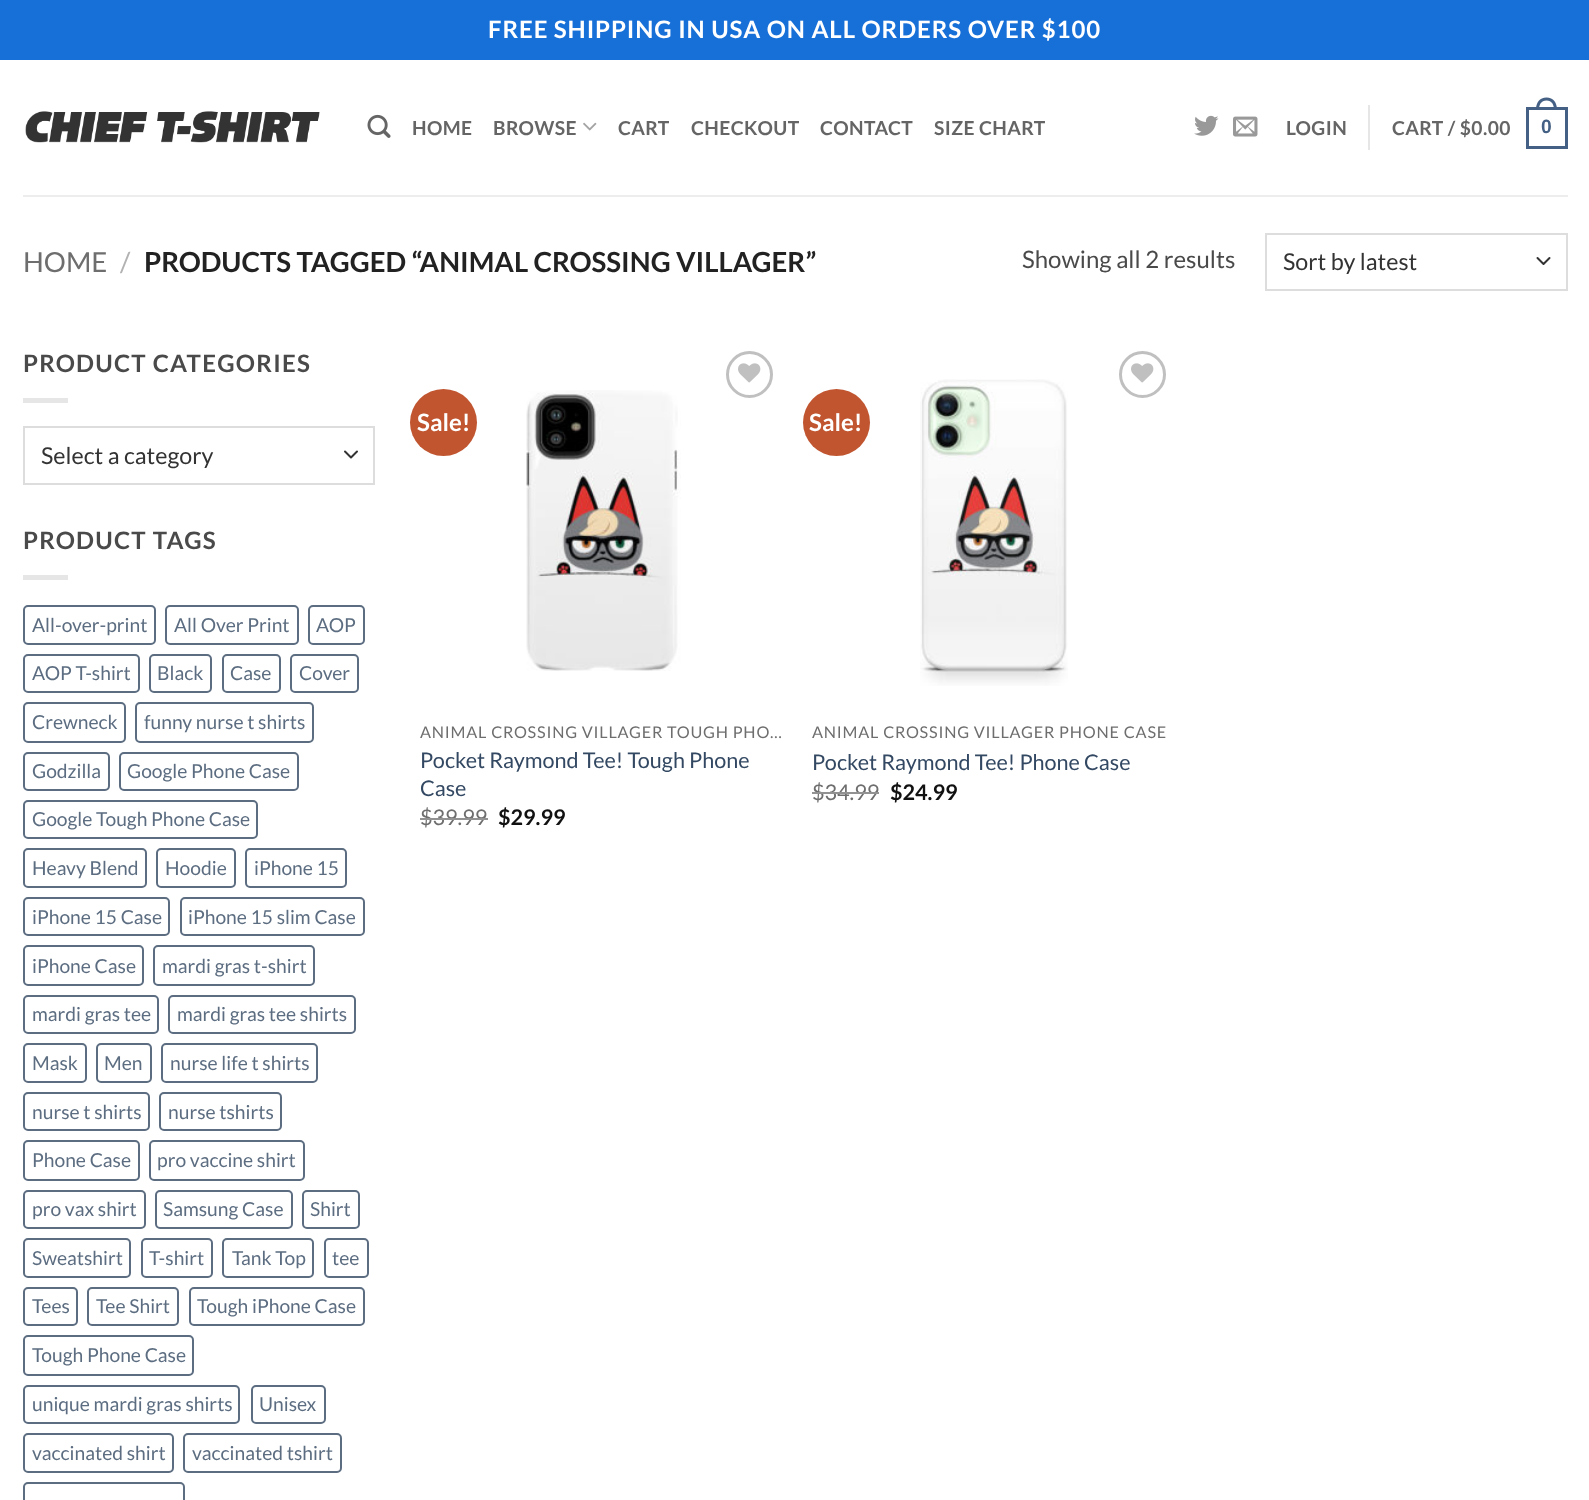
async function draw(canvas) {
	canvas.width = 1589;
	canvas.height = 1500;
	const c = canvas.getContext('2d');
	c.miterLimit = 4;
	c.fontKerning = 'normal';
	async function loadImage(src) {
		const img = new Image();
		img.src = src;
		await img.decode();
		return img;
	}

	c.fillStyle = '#fff';
	c.fillRect(0, 0, 1589, 1500);
	c.fillStyle = '#176fd8';
	c.fillRect(0, 0, 1589, 60);
	c.letterSpacing = '0.9px';
	c.font = 'bold 24px Lato';
	c.fillStyle = '#fff';
	c.fillText('FREE SHIPPING IN USA ON ALL ORDERS OVER $100', 488, 38);
	c.drawImage(await loadImage('img1.png'), 25, 111, 295, 32);
	c.drawImage(await loadImage('img2.png'), 367, 114, 24, 24);
	c.letterSpacing = '0.4px';
	c.font = 'bold 19.25px Lato';
	c.fillStyle = '#656565';
	c.fillText('HOME', 412, 135);
	c.fillText('BROWSE', 493, 135);
	c.drawImage(await loadImage('img3.png'), 583, 122, 14, 9);
	for (const [text, x, y] of [
		['CART', 618, 135],
		['CHECKOUT', 691, 135],
		['CONTACT', 820, 135],
		['SIZE CHART', 934, 135],
	]) {
		c.fillText(text, x, y);
	}
	c.drawImage(await loadImage('img4.png'), 1194, 115, 25, 21);
	c.drawImage(await loadImage('img5.png'), 1233, 116, 25, 21);
	c.fillText('LOGIN', 1286, 135);
	c.fillStyle = '#e6e6e6';
	c.fillRect(1368, 105, 2, 45);
	c.fillStyle = '#656565';
	c.fillText('CART / $0.00', 1392, 135);
	c.strokeStyle = '#446084';
	c.lineWidth = 3;
	c.strokeRect(1527.5, 108.5, 39, 39);
	c.fillStyle = '#446084';
	c.beginPath();
	c.moveTo(1546.5, 97.5);
	c.bezierCurveTo(1553.5, 97.5, 1557, 103, 1557, 109.5);
	c.lineTo(1536, 109.5);
	c.bezierCurveTo(1536, 103, 1539.5, 97.5, 1546.5, 97.5);
	c.closePath();
	c.moveTo(1546.5, 100.5);
	c.bezierCurveTo(1552, 100.5, 1554, 105, 1554, 109.5);
	c.lineTo(1539, 109.5);
	c.bezierCurveTo(1539, 105, 1541, 100.5, 1546.5, 100.5);
	c.closePath();
	c.fill('evenodd');
	c.font = 'bold 19.25px Liberation Sans';
	c.fillText('0', 1541, 133);
	c.fillStyle = '#ededed';
	c.fillRect(23, 195, 1545, 2);
	c.letterSpacing = '0px';
	c.font = '27.6px Lato';
	c.fillStyle = '#6e6e6e';
	c.fillText('HOME', 23, 272);
	c.fillStyle = '#b2b2b2';
	c.fillText('/', 120, 272);
	c.font = 'bold 27.6px Lato';
	c.fillStyle = '#222';
	c.fillText('PRODUCTS TAGGED “ANIMAL CROSSING VILLAGER”', 144, 272);
	c.font = '24px Lato';
	c.fillStyle = '#4a4a4a';
	c.fillText('Showing all 2 results', 1022, 268);
	c.beginPath();
	c.moveTo(1537.5, 258);
	c.lineTo(1543.5, 264);
	c.lineTo(1549.5, 258);
	c.strokeStyle = '#333';
	c.lineWidth = 2;
	c.lineCap = 'round';
	c.lineJoin = 'round';
	c.stroke();
	c.strokeStyle = '#ddd';
	c.lineJoin = 'miter';
	c.strokeRect(1266, 234, 301, 56);
	c.font = '23.25px Lato';
	c.fillStyle = '#333';
	c.fillText('Sort by latest', 1283, 270);
	c.letterSpacing = '1.25px';
	c.font = 'bold 24px Lato';
	c.fillStyle = '#4a4a4a';
	c.fillText('PRODUCT CATEGORIES', 23, 372);
	c.fillStyle = '#e6e6e6';
	c.fillRect(23, 398, 45, 5);
	c.beginPath();
	c.moveTo(345, 451.5);
	c.lineTo(351, 457.5);
	c.lineTo(357, 451.5);
	c.strokeStyle = '#333';
	c.lineJoin = 'round';
	c.stroke();
	c.strokeStyle = '#ddd';
	c.lineJoin = 'miter';
	c.strokeRect(24, 427, 350, 57);
	c.letterSpacing = '0px';
	c.font = '23.25px Lato';
	c.fillStyle = '#333';
	c.fillText('Select a category', 41, 464);
	c.letterSpacing = '1.25px';
	c.font = 'bold 24px Lato';
	c.fillStyle = '#4a4a4a';
	c.fillText('PRODUCT TAGS', 23, 549);
	c.fillStyle = '#e6e6e6';
	c.fillRect(23, 575, 45, 5);
	c.beginPath();
	c.roundRect(24, 606, 131, 38, 4);
	c.strokeStyle = '#5c6d81';
	c.stroke();
	c.letterSpacing = '0px';
	c.font = '19.25px Lato';
	c.fillStyle = '#5c6d81';
	c.fillText('All-over-print', 32, 632);
	c.beginPath();
	c.roundRect(166, 606, 132, 38, 4);
	c.stroke();
	c.fillText('All Over Print', 174, 632);
	c.beginPath();
	c.roundRect(309, 606, 55, 38, 4);
	c.stroke();
	c.fillText('AOP', 316, 632);
	c.beginPath();
	c.roundRect(24, 655, 115, 37, 4);
	c.stroke();
	c.fillText('AOP T-shirt', 32, 680);
	c.beginPath();
	c.roundRect(150, 655, 61, 37, 4);
	c.stroke();
	c.fillText('Black', 157, 680);
	c.beginPath();
	c.roundRect(223, 655, 57, 37, 4);
	c.stroke();
	c.fillText('Case', 230, 680);
	c.beginPath();
	c.roundRect(291, 655, 67, 37, 4);
	c.stroke();
	c.fillText('Cover', 299, 680);
	c.beginPath();
	c.roundRect(24, 703, 101, 39, 4);
	c.stroke();
	c.fillText('Crewneck', 32, 729);
	c.beginPath();
	c.roundRect(136, 703, 177, 39, 4);
	c.stroke();
	c.fillText('funny nurse t shirts', 144, 729);
	c.beginPath();
	c.roundRect(24, 753, 85, 37, 4);
	c.stroke();
	c.fillText('Godzilla', 32, 778);
	c.beginPath();
	c.roundRect(120, 753, 178, 37, 4);
	c.stroke();
	c.fillText('Google Phone Case', 127, 778);
	c.beginPath();
	c.roundRect(24, 801, 233, 37, 4);
	c.stroke();
	c.fillText('Google Tough Phone Case', 32, 826);
	c.beginPath();
	c.roundRect(24, 849, 122, 38, 4);
	c.stroke();
	c.fillText('Heavy Blend', 32, 875);
	c.beginPath();
	c.roundRect(157, 849, 78, 38, 4);
	c.stroke();
	c.fillText('Hoodie', 165, 875);
	c.beginPath();
	c.roundRect(246, 849, 100, 38, 4);
	c.stroke();
	c.fillText('iPhone 15', 254, 875);
	c.beginPath();
	c.roundRect(24, 898, 145, 37, 4);
	c.stroke();
	c.fillText('iPhone 15 Case', 32, 924);
	c.beginPath();
	c.roundRect(181, 898, 183, 37, 4);
	c.stroke();
	c.fillText('iPhone 15 slim Case', 188, 924);
	c.beginPath();
	c.roundRect(24, 946, 119, 39, 4);
	c.stroke();
	c.fillText('iPhone Case', 32, 973);
	c.beginPath();
	c.roundRect(154, 946, 160, 39, 4);
	c.stroke();
	c.fillText('mardi gras t-shirt', 162, 973);
	c.beginPath();
	c.roundRect(24, 996, 134, 37, 4);
	c.stroke();
	c.fillText('mardi gras tee', 32, 1021);
	c.beginPath();
	c.roundRect(169, 996, 186, 37, 4);
	c.stroke();
	c.fillText('mardi gras tee shirts', 177, 1021);
	c.beginPath();
	c.roundRect(24, 1044, 62, 38, 4);
	c.stroke();
	c.fillText('Mask', 32, 1070);
	c.beginPath();
	c.roundRect(97, 1044, 54, 38, 4);
	c.stroke();
	c.fillText('Men', 104, 1070);
	c.beginPath();
	c.roundRect(162, 1044, 155, 38, 4);
	c.stroke();
	c.fillText('nurse life t shirts', 170, 1070);
	c.beginPath();
	c.roundRect(24, 1093, 125, 37, 4);
	c.stroke();
	c.fillText('nurse t shirts', 32, 1119);
	c.beginPath();
	c.roundRect(160, 1093, 121, 37, 4);
	c.stroke();
	c.fillText('nurse tshirts', 168, 1119);
	c.beginPath();
	c.roundRect(24, 1141, 115, 39, 4);
	c.stroke();
	c.fillText('Phone Case', 32, 1167);
	c.beginPath();
	c.roundRect(150, 1141, 154, 39, 4);
	c.stroke();
	c.fillText('pro vaccine shirt', 157, 1167);
	c.beginPath();
	c.roundRect(24, 1191, 121, 37, 4);
	c.stroke();
	c.fillText('pro vax shirt', 32, 1216);
	c.beginPath();
	c.roundRect(156, 1191, 136, 37, 4);
	c.stroke();
	c.fillText('Samsung Case', 163, 1216);
	c.beginPath();
	c.roundRect(303, 1191, 56, 37, 4);
	c.stroke();
	c.fillText('Shirt', 310, 1216);
	c.beginPath();
	c.roundRect(24, 1239, 106, 38, 4);
	c.stroke();
	c.fillText('Sweatshirt', 32, 1265);
	c.beginPath();
	c.roundRect(142, 1239, 70, 38, 4);
	c.stroke();
	c.fillText('T-shirt', 149, 1265);
	c.beginPath();
	c.roundRect(223, 1239, 90, 38, 4);
	c.stroke();
	c.fillText('Tank Top', 232, 1265);
	c.beginPath();
	c.roundRect(325, 1239, 43, 38, 4);
	c.stroke();
	c.fillText('tee', 332, 1265);
	c.beginPath();
	c.roundRect(24, 1288, 53, 37, 4);
	c.stroke();
	c.fillText('Tees', 32, 1313);
	c.beginPath();
	c.roundRect(88, 1288, 90, 37, 4);
	c.stroke();
	c.fillText('Tee Shirt', 96, 1313);
	c.beginPath();
	c.roundRect(190, 1288, 174, 37, 4);
	c.stroke();
	c.fillText('Tough iPhone Case', 197, 1313);
	c.beginPath();
	c.roundRect(24, 1336, 169, 39, 4);
	c.stroke();
	c.fillText('Tough Phone Case', 32, 1362);
	c.beginPath();
	c.roundRect(24, 1386, 215, 37, 4);
	c.stroke();
	c.fillText('unique mardi gras shirts', 32, 1411);
	c.beginPath();
	c.roundRect(252, 1386, 73, 37, 4);
	c.stroke();
	c.fillText('Unisex', 259, 1411);
	c.beginPath();
	c.roundRect(24, 1434, 149, 38, 4);
	c.stroke();
	c.fillText('vaccinated shirt', 32, 1460);
	c.beginPath();
	c.roundRect(184, 1434, 157, 38, 4);
	c.stroke();
	c.fillText('vaccinated tshirt', 192, 1460);
	c.beginPath();
	c.roundRect(24, 1483, 160, 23, 4);
	c.stroke();
	c.fillStyle = '#c05530';
	c.beginPath();
	c.arc(443.5, 422.5, 33.5, 0, 2 * Math.PI);
	c.fill();
	c.font = 'bold 24px Lato';
	c.fillStyle = '#fff';
	c.fillText('Sale!', 417, 431);
	c.beginPath();
	c.arc(749.5, 374.5, 22, 0, 2 * Math.PI);
	c.strokeStyle = '#c0c0c0';
	c.lineWidth = 3;
	c.stroke();
	c.drawImage(await loadImage('img6.png'), 738, 363, 23, 20);
	c.drawImage(await loadImage('img7.png'), 526, 390, 155, 281);
	c.letterSpacing = '0.8px';
	c.font = '16.2px Lato';
	c.fillStyle = '#6e6e6e';
	c.fillText('ANIMAL CROSSING VILLAGER TOUGH PHO…', 420, 738);
	c.letterSpacing = '0px';
	c.font = '21.6px Lato';
	c.fillStyle = '#334862';
	c.fillText('Pocket Raymond Tee! Tough Phone', 420, 768);
	c.fillText('Case', 420, 796);
	c.fillStyle = '#6e6e6e';
	c.fillText('$39.99', 420, 825);
	c.fillStyle = '#929292';
	c.fillRect(420, 818, 68, 2);
	c.font = 'bold 21.6px Lato';
	c.fillStyle = '#111';
	c.fillText('$29.99', 498, 825);
	c.fillStyle = '#c05530';
	c.beginPath();
	c.arc(836.5, 422.5, 33.5, 0, 2 * Math.PI);
	c.fill();
	c.font = 'bold 24px Lato';
	c.fillStyle = '#fff';
	c.fillText('Sale!', 809, 431);
	c.drawImage(await loadImage('img8.png'), 920, 379, 148, 307);
	c.beginPath();
	c.arc(1142.5, 374.5, 22, 0, 2 * Math.PI);
	c.stroke();
	c.drawImage(await loadImage('img6.png'), 1131, 363, 23, 20);
	c.letterSpacing = '0.8px';
	c.font = '16.2px Lato';
	c.fillStyle = '#6e6e6e';
	c.fillText('ANIMAL CROSSING VILLAGER PHONE CASE', 812, 738);
	c.letterSpacing = '0px';
	c.font = '21.6px Lato';
	c.fillStyle = '#334862';
	c.fillText('Pocket Raymond Tee! Phone Case', 812, 770);
	c.fillStyle = '#6e6e6e';
	c.fillText('$34.99', 812, 800);
	c.fillStyle = '#929292';
	c.fillRect(812, 792, 67, 2);
	c.font = 'bold 21.6px Lato';
	c.fillStyle = '#111';
	c.fillText('$24.99', 890, 800);
}

draw(document.querySelector('canvas'));
